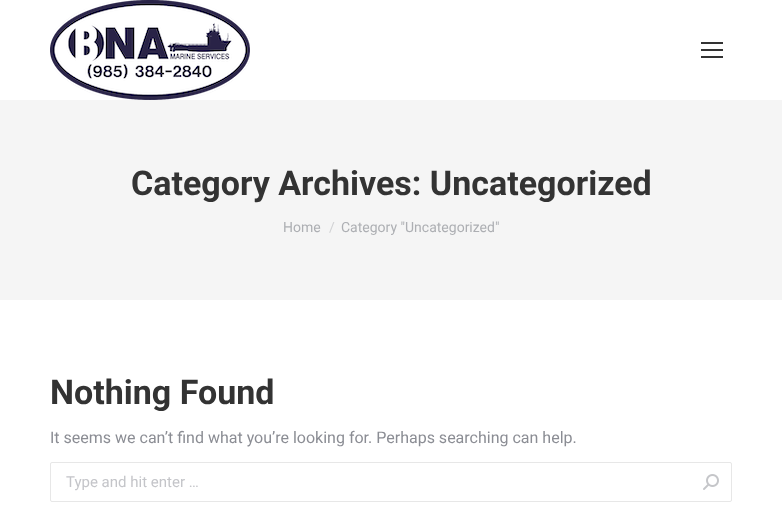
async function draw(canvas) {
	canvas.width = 782;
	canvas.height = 517;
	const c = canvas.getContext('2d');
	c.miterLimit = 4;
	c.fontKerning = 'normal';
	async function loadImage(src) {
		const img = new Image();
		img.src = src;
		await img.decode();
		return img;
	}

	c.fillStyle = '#fff';
	c.fillRect(0, 0, 782, 517);
	c.drawImage(await loadImage('img1.png'), 50, 0, 200, 100);
	for (const [x, y, w, h, color] of [
		[701, 42, 22, 2, '#333'],
		[701, 49, 22, 2, '#333'],
		[701, 56, 22, 2, '#333'],
		[0, 100, 782, 200, '#f5f5f5'],
	]) {
		c.fillStyle = color;
		c.fillRect(x, y, w, h);
	}
	c.font = 'bold 34px Roboto';
	c.fillStyle = '#333';
	c.fillText('Category Archives: Uncategorized', 131, 195);
	c.font = '14px Roboto';
	c.fillStyle = '#adafb3';
	c.fillText('Home', 283, 232);
	c.fillStyle = '#d1d2d4';
	c.fillText('/', 329, 232);
	c.fillStyle = '#adafb3';
	c.fillText('Category "Uncategorized"', 341, 232);
	c.font = 'bold 34px Roboto';
	c.fillStyle = '#333';
	c.fillText('Nothing Found', 50, 404);
	c.font = '16px Roboto';
	c.fillStyle = '#8b8d94';
	c.fillText('It seems we can’t find what you’re looking for. Perhaps searching can help.', 50, 443);
	c.beginPath();
	c.roundRect(50.5, 462.5, 681, 39, 1.5);
	c.strokeStyle = '#e7e7e7';
	c.stroke();
	c.font = '15px Roboto';
	c.fillStyle = '#c4c5c9';
	c.fillText('Type and hit enter …', 66, 487);
	c.drawImage(await loadImage('img2.png'), 703, 474, 16, 16);
}

draw(document.querySelector('canvas'));
